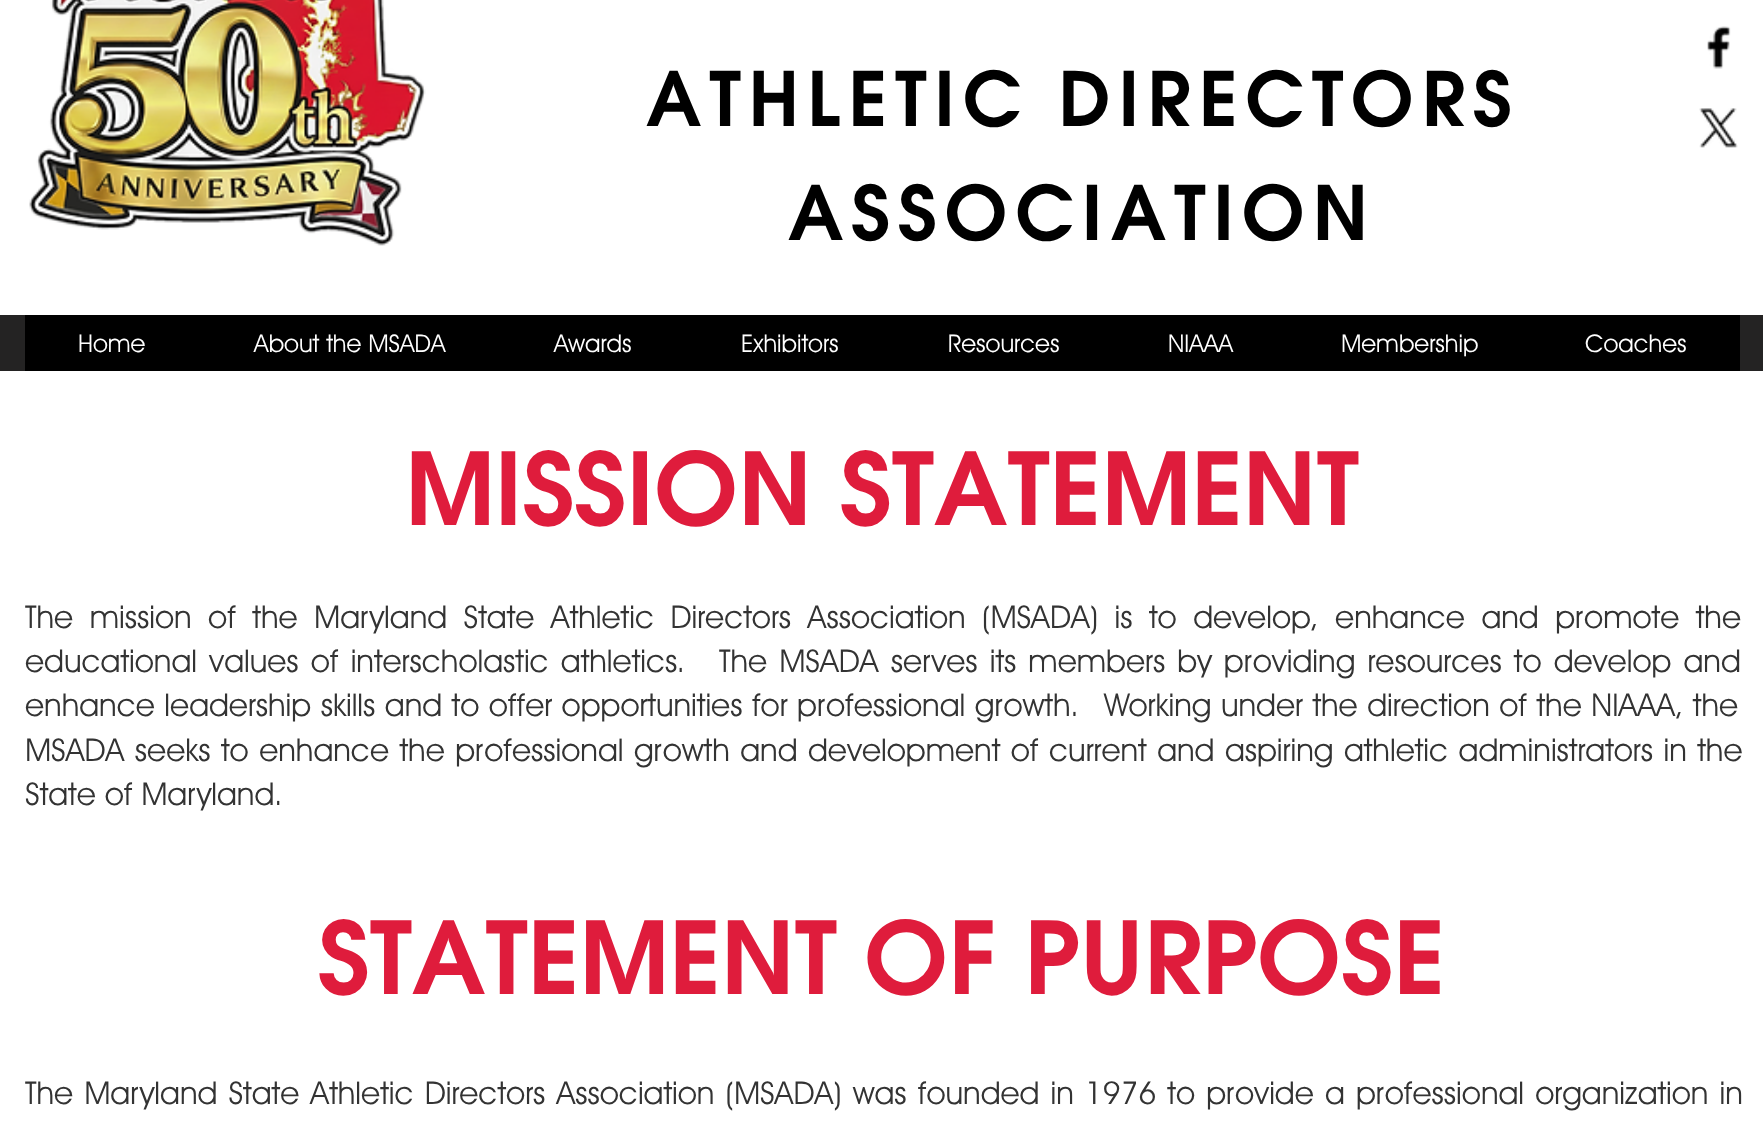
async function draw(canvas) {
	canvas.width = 1763;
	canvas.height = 1124;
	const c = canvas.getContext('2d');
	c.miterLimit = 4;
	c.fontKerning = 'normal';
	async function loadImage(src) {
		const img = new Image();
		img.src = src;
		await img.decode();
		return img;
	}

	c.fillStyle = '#fff';
	c.fillRect(0, 0, 1763, 1124);
	c.drawImage(await loadImage('img1.png'), 29, 0, 397, 246);
	c.letterSpacing = '7.9px';
	c.font = 'bold 78.75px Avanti';
	c.fillStyle = '#000';
	c.fillText('ATHLETIC DIRECTORS', 646, 126);
	c.fillText('ASSOCIATION', 788, 240);
	c.drawImage(await loadImage('img2.png'), 1707, 26, 24, 43);
	c.drawImage(await loadImage('img3.png'), 1699, 108, 39, 40);
	c.fillStyle = '#242323';
	c.fillRect(0, 315, 1763, 56);
	c.fillStyle = '#000';
	c.fillRect(25, 315, 1715, 56);
	c.letterSpacing = '0px';
	c.font = '24.5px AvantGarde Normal';
	c.fillStyle = '#fff';
	for (const [text, x, y] of [
		['Home', 78, 352],
		['About the MSADA', 254, 352],
		['Awards', 554, 352],
		['Exhibitors', 741, 352],
		['Resources', 948, 352],
		['NIAAA', 1168, 352],
		['Membership', 1341, 352],
		['Coaches', 1585, 352],
	]) {
		c.fillText(text, x, y);
	}
	c.font = 'bold 105px Avanti';
	c.fillStyle = '#df1c3c';
	c.fillText('MISSION STATEMENT', 405, 525);
	c.wordSpacing = '7.6px';
	c.font = '31.5px AvantGarde Normal';
	c.fillStyle = '#333';
	c.fillText('The mission of the Maryland State Athletic Directors Association (MSADA) is to develop, enhance and promote the', 25, 628);
	c.wordSpacing = '3.25px';
	c.fillText('educational values of interscholastic athletics.', 25, 672);
	c.fillText('The MSADA serves its members by providing resources to develop and', 719, 672);
	c.wordSpacing = '0.6px';
	c.fillText('enhance leadership skills and to offer opportunities for professional growth.', 25, 716);
	c.fillText('Working under the direction of the NIAAA, the', 1104, 716);
	c.wordSpacing = '1.6px';
	c.fillText('MSADA seeks to enhance the professional growth and development of current and aspiring athletic administrators in the', 25, 761);
	c.wordSpacing = '0px';
	c.fillText('State of Maryland.', 25, 805);
	c.font = 'bold 105px Avanti';
	c.fillStyle = '#df1c3c';
	c.fillText('STATEMENT OF PURPOSE', 318, 994);
	c.wordSpacing = '2.25px';
	c.font = '31.5px AvantGarde Normal';
	c.fillStyle = '#333';
	c.fillText('The Maryland State Athletic Directors Association (MSADA) was founded in 1976 to provide a professional organization in', 25, 1104);
}

draw(document.querySelector('canvas'));
